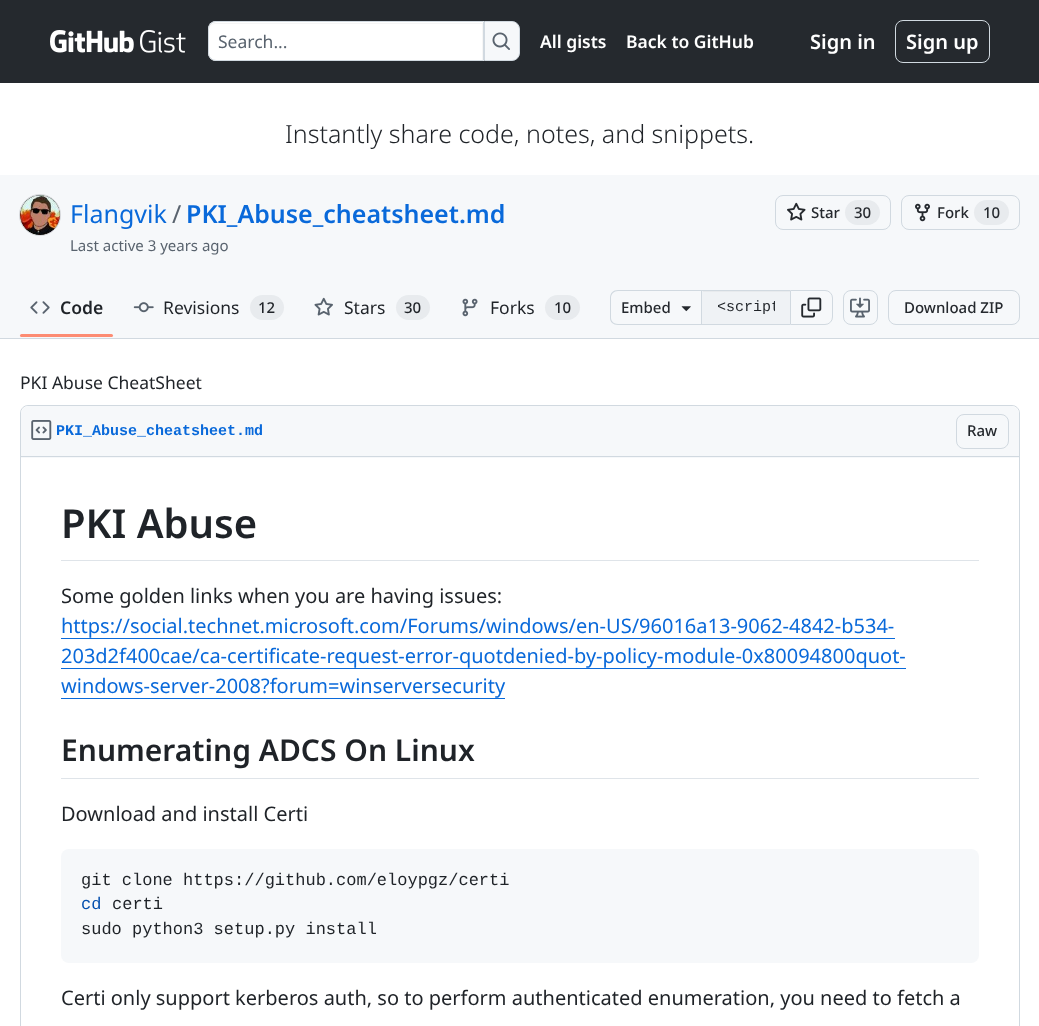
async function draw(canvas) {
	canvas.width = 1039;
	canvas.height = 1026;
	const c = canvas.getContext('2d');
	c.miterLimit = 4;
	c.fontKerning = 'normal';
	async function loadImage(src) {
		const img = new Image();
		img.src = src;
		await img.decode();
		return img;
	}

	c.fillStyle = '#fff';
	c.fillRect(0, 0, 1039, 1026);
	c.fillStyle = '#25292e';
	c.fillRect(0, 0, 1039, 83);
	c.drawImage(await loadImage('img1.png'), 50, 30, 84, 23);
	c.drawImage(await loadImage('img2.png'), 140, 30, 46, 23);
	c.fillStyle = '#fff';
	c.beginPath();
	c.roundRect(208, 21, 276, 40, [8, 0, 0, 8]);
	c.fill();
	c.fillStyle = '#f6f6f6';
	c.beginPath();
	c.moveTo(215, 24);
	c.lineTo(482, 24);
	c.lineTo(482, 60);
	c.lineTo(483, 60);
	c.lineTo(483, 23);
	c.lineTo(215, 23);
	c.bezierCurveTo(212, 23, 209, 26, 209, 29);
	c.lineTo(209, 30);
	c.bezierCurveTo(209, 27, 212, 24, 215, 24);
	c.closePath();
	c.fill();
	c.beginPath();
	c.roundRect(208.5, 21.5, 275, 39, [7.5, 0, 0, 7.5]);
	c.strokeStyle = '#d1d9e0';
	c.stroke();
	c.font = '17.5px Noto Sans';
	c.fillStyle = '#59636e';
	c.fillText('Search...', 218, 48);
	c.fillStyle = '#f6f8fa';
	c.beginPath();
	c.roundRect(484.5, 21.5, 35, 39, [0, 7.5, 7.5, 0]);
	c.fill();
	c.stroke();
	c.drawImage(await loadImage('img3.png'), 492, 32, 18, 18);
	c.font = '600 17.5px Noto Sans';
	c.fillStyle = '#fff';
	c.fillText('All gists', 540, 48);
	c.fillText('Back to GitHub', 626, 48);
	c.font = '600 20px Noto Sans';
	c.fillText('Sign in', 810, 49);
	c.beginPath();
	c.roundRect(895.5, 20.5, 94, 42, 7.5);
	c.stroke();
	c.fillText('Sign up', 906, 49);
	c.font = '300 25px Noto Sans';
	c.fillStyle = '#1f2328';
	c.fillText('Instantly share code, notes, and snippets.', 285, 143);
	c.fillStyle = '#f6f8fa';
	c.fillRect(0, 175, 1039, 163);
	c.fillStyle = '#d1d9e0';
	c.fillRect(0, 338, 1039, 1);
	c.beginPath();
	c.arc(40, 215, 20.5, 0, 2 * Math.PI);
	c.strokeStyle = '#d6d8db';
	c.stroke();
	c.fillStyle = '#fff';
	c.beginPath();
	c.arc(40, 215, 20, 0, 2 * Math.PI);
	c.fill();
	c.drawImage(await loadImage('img4.png'), 20, 195, 40, 40);
	c.font = '25px Noto Sans';
	c.fillStyle = '#0969da';
	c.fillText('Flangvik', 70, 223);
	c.fillStyle = '#59636e';
	c.fillText('/', 172, 223);
	c.font = '600 25px Noto Sans';
	c.fillStyle = '#0969da';
	c.fillText('PKI_Abuse_cheatsheet.md', 186, 223);
	c.font = '15px Noto Sans';
	c.fillStyle = '#59636e';
	c.fillText('Last active 3 years ago', 70, 251);
	c.beginPath();
	c.roundRect(775.5, 195.5, 115, 34, 7.5);
	c.strokeStyle = '#d1d9e0';
	c.stroke();
	c.drawImage(await loadImage('img5.png'), 787, 202, 19, 19);
	c.font = '500 15px Noto Sans';
	c.fillStyle = '#25292e';
	c.fillText('Star', 811, 218);
	c.fillStyle = '#e8ebee';
	c.beginPath();
	c.roundRect(845, 200, 35, 25, 12.5);
	c.fill();
	c.fillStyle = '#25292e';
	c.fillText('30', 854, 218);
	c.beginPath();
	c.roundRect(901.5, 195.5, 118, 34, 7.5);
	c.stroke();
	c.drawImage(await loadImage('img6.png'), 915, 203, 15, 19);
	c.fillText('Fork', 937, 218);
	c.fillStyle = '#e8ebee';
	c.beginPath();
	c.roundRect(974, 200, 35, 25, 12.5);
	c.fill();
	c.fillStyle = '#25292e';
	c.fillText('10', 983, 218);
	c.drawImage(await loadImage('img7.png'), 30, 301, 20, 13);
	c.font = '600 17.5px Noto Sans';
	c.fillStyle = '#1f2328';
	c.fillText('Code', 60, 314);
	c.fillStyle = '#fd8c73';
	c.beginPath();
	c.roundRect(20, 334, 93, 3, 1.5);
	c.fill();
	c.drawImage(await loadImage('img8.png'), 133, 302, 21, 11);
	c.font = '17.5px Noto Sans';
	c.fillStyle = '#1f2328';
	c.fillText('Revisions', 163, 314);
	c.fillStyle = '#e8ebee';
	c.beginPath();
	c.roundRect(250, 295, 34, 25, 12.5);
	c.fill();
	c.font = '500 15px Noto Sans';
	c.fillStyle = '#1f2328';
	c.fillText('12', 258, 313);
	c.drawImage(await loadImage('img9.png'), 314, 297, 19, 19);
	c.font = '17.5px Noto Sans';
	c.fillText('Stars', 344, 314);
	c.fillStyle = '#e8ebee';
	c.beginPath();
	c.roundRect(396, 295, 34, 25, 12.5);
	c.fill();
	c.font = '500 15px Noto Sans';
	c.fillStyle = '#1f2328';
	c.fillText('30', 404, 313);
	c.drawImage(await loadImage('img10.png'), 462, 298, 16, 19);
	c.font = '17.5px Noto Sans';
	c.fillText('Forks', 490, 314);
	c.fillStyle = '#e8ebee';
	c.beginPath();
	c.roundRect(545, 295, 35, 25, 12.5);
	c.fill();
	c.font = '500 15px Noto Sans';
	c.fillStyle = '#1f2328';
	c.fillText('10', 554, 313);
	c.fillStyle = '#d1d9e0';
	c.beginPath();
	c.moveTo(618, 290);
	c.lineTo(701, 290);
	c.lineTo(701, 325);
	c.lineTo(618, 325);
	c.bezierCurveTo(613, 325, 610, 322, 610, 318);
	c.lineTo(610, 298);
	c.bezierCurveTo(610, 293, 613, 290, 618, 290);
	c.closePath();
	c.moveTo(618, 291);
	c.lineTo(701, 291);
	c.lineTo(701, 324);
	c.lineTo(618, 324);
	c.bezierCurveTo(614, 324, 611, 321, 611, 318);
	c.lineTo(611, 298);
	c.bezierCurveTo(611, 294, 614, 291, 618, 291);
	c.closePath();
	c.fill('evenodd');
	c.fillStyle = '#25292e';
	c.fillText('Embed', 621, 313);
	c.drawImage(await loadImage('img11.png'), 681, 306, 10, 6);
	for (const [x, y, w, h, color] of [
		[702, 291, 88, 33, '#eff2f5'],
		[703, 291, 87, 1, '#e7eaed'],
		[701, 290, 89, 1, '#d1d9e0'],
		[701, 324, 89, 1, '#d1d9e0'],
		[701, 290, 1, 35, '#d1d9e0'],
	]) {
		c.fillStyle = color;
		c.fillRect(x, y, w, h);
	}
	c.save();
	c.beginPath();
	c.rect(718, 299, 57, 17);
	c.clip();
	c.font = '15px Liberation Mono';
	c.fillStyle = '#1f2328';
	c.fillText('<script', 717, 311);
	c.restore();
	c.beginPath();
	c.roundRect(790.5, 290.5, 42, 34, [0, 7.5, 7.5, 0]);
	c.stroke();
	c.drawImage(await loadImage('img12.png'), 801, 297, 21, 21);
	c.beginPath();
	c.roundRect(843.5, 290.5, 34, 34, 7.5);
	c.stroke();
	c.drawImage(await loadImage('img13.png'), 850, 297, 20, 21);
	c.beginPath();
	c.roundRect(888.5, 290.5, 131, 34, 7.5);
	c.stroke();
	c.fillStyle = '#25292e';
	c.fillText('Download ZIP', 904, 313);
	c.font = '17.5px Noto Sans';
	c.fillStyle = '#1f2328';
	c.fillText('PKI Abuse CheatSheet', 20, 389);
	c.beginPath();
	c.roundRect(20.5, 405.5, 999, 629, 7.5);
	c.stroke();
	c.fillStyle = '#f6f8fa';
	c.beginPath();
	c.roundRect(21, 406, 998, 52, [8, 8, 0, 0]);
	c.fill();
	c.fillStyle = '#d1d9e0';
	c.fillRect(21, 456, 998, 1);
	c.drawImage(await loadImage('img14.png'), 31, 420, 21, 20);
	c.font = 'bold 15px Liberation Mono';
	c.fillStyle = '#0969da';
	c.fillText('PKI_Abuse_cheatsheet.md', 56, 435);
	c.beginPath();
	c.roundRect(956.5, 414.5, 52, 34, 7.5);
	c.stroke();
	c.font = '500 15px Noto Sans';
	c.fillStyle = '#25292e';
	c.fillText('Raw', 967, 436);
	c.fillStyle = '#dfe4e9';
	c.fillRect(61, 560, 918, 1);
	c.font = '600 40px Noto Sans';
	c.fillStyle = '#1f2328';
	c.fillText('PKI Abuse', 61, 538);
	c.font = '20px Noto Sans';
	c.fillText('Some golden links when you are having issues:', 61, 603);
	c.fillStyle = '#0969da';
	c.fillText('https://social.technet.microsoft.com/Forums/windows/en-US/96016a13-9062-4842-b534-', 61, 633);
	c.fillRect(61, 638, 834, 1);
	c.fillText('203d2f400cae/ca-certificate-request-error-quotdenied-by-policy-module-0x80094800quot-', 61, 663);
	c.fillRect(61, 668, 845, 1);
	c.fillText('windows-server-2008?forum=winserversecurity', 61, 693);
	c.fillRect(61, 698, 444, 1);
	c.fillStyle = '#dfe4e9';
	c.fillRect(61, 778, 918, 1);
	c.font = '600 30px Noto Sans';
	c.fillStyle = '#1f2328';
	c.fillText('Enumerating ADCS On Linux', 61, 761);
	c.font = '20px Noto Sans';
	c.fillText('Download and install Certi', 61, 821);
	c.fillStyle = '#f6f8fa';
	c.beginPath();
	c.roundRect(61, 849, 918, 114, 8);
	c.fill();
	c.font = '17px Liberation Mono';
	c.fillStyle = '#1f2328';
	c.fillText('git clone https://github.com/eloypgz/certi', 81, 885);
	c.fillStyle = '#0550ae';
	c.fillText('cd', 81, 909);
	c.fillStyle = '#1f2328';
	c.fillText('certi', 112, 909);
	c.fillText('sudo python3 setup.py install', 81, 934);
	c.font = '20px Noto Sans';
	c.fillText('Certi only support kerberos auth, so to perform authenticated enumeration, you need to fetch a', 61, 1005);
}

draw(document.querySelector('canvas'));
